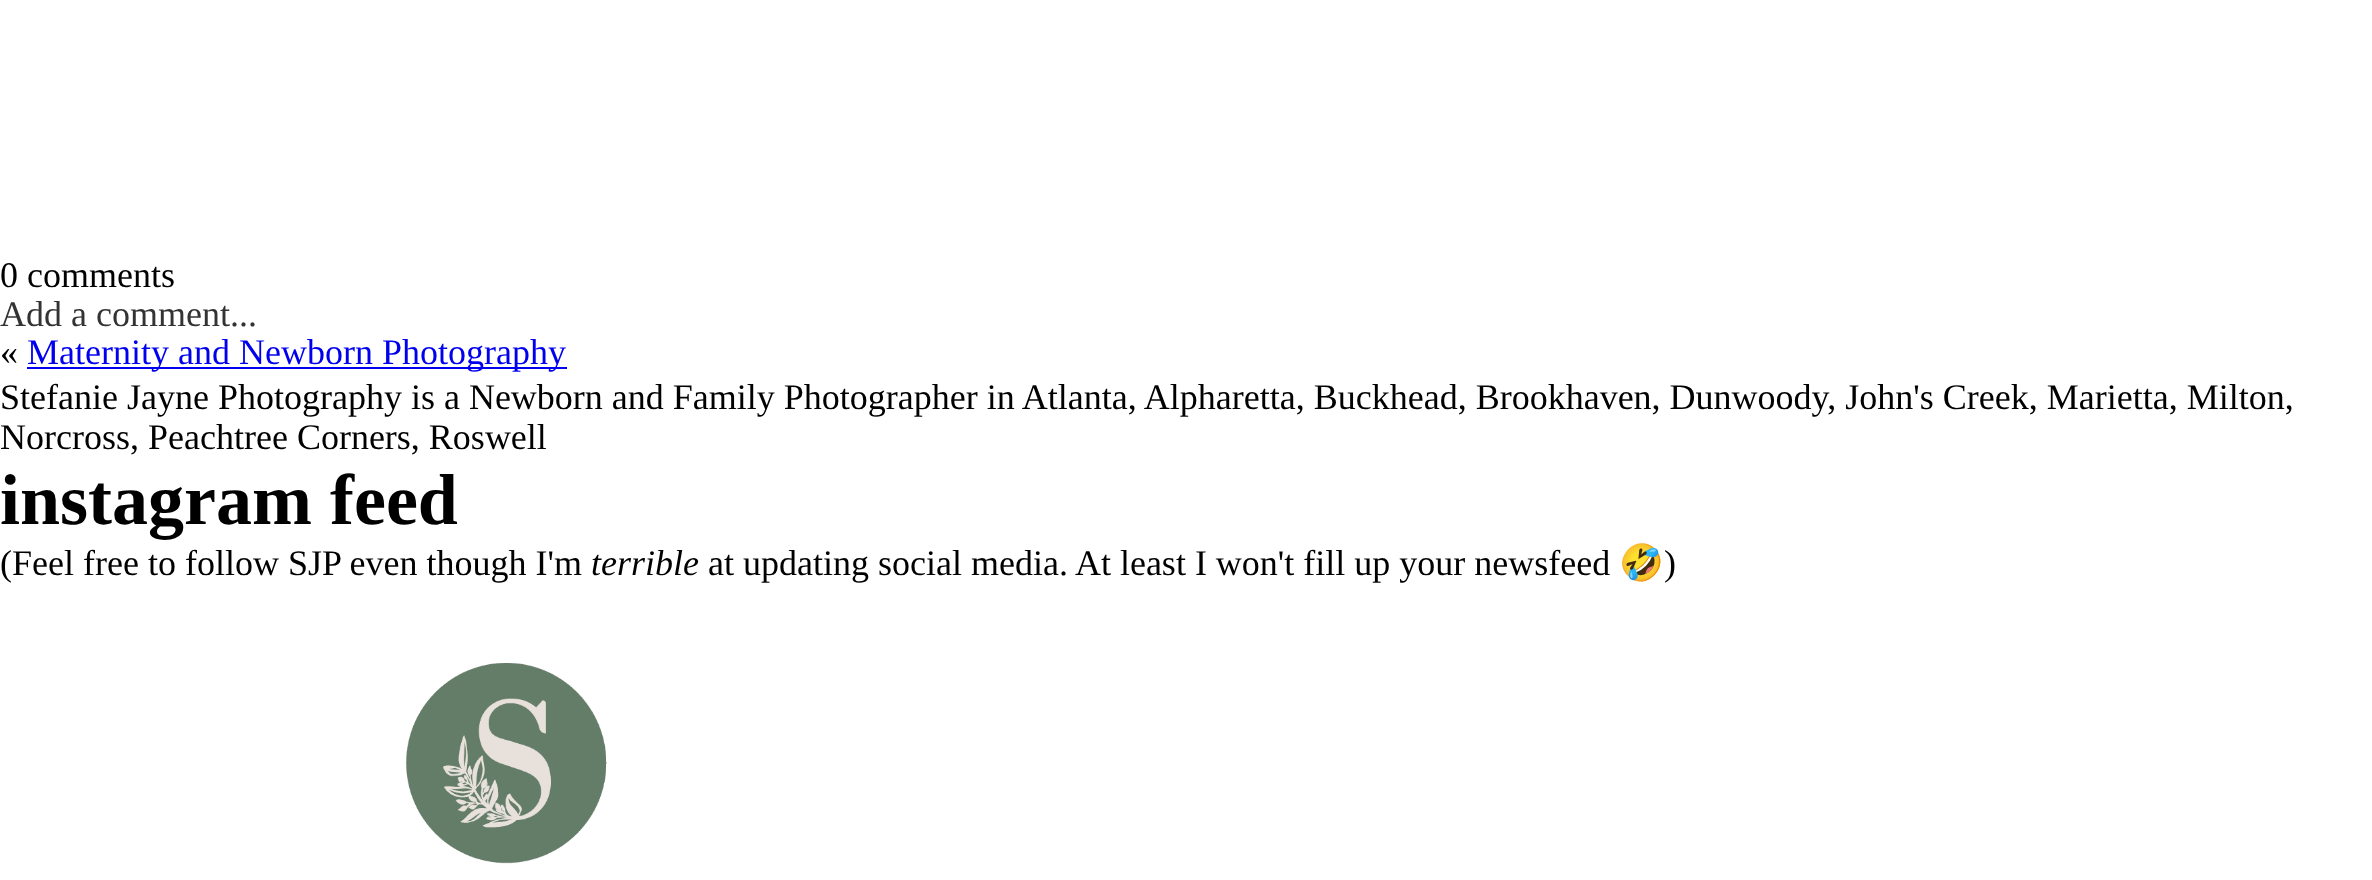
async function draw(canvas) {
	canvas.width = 2372;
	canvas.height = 880;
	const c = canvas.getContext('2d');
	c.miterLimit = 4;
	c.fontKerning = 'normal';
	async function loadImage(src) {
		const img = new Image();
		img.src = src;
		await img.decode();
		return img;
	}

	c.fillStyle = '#fff';
	c.fillRect(0, 0, 2372, 880);
	c.font = '36px Liberation Serif';
	c.fillStyle = '#000';
	c.fillText('0 comments', 0, 287);
	c.fillStyle = '#333';
	c.fillText('Add a comment...', 0, 326);
	c.fillStyle = '#000';
	c.fillText('«', 0, 364);
	c.fillStyle = '#00e';
	c.fillRect(27, 367, 540, 2);
	c.fillText('Maternity and Newborn Photography', 27, 364);
	c.fillStyle = '#000';
	c.fillText('Stefanie Jayne Photography is a Newborn and Family Photographer in Atlanta, Alpharetta, Buckhead, Brookhaven, Dunwoody, John\'s Creek, Marietta, Milton,', 0, 409);
	c.fillText('Norcross, Peachtree Corners, Roswell', 0, 449);
	c.font = 'bold 72px Liberation Serif';
	c.fillText('instagram feed', 0, 524);
	c.font = '36px Liberation Serif';
	c.fillText('(Feel free to follow SJP even though I\'m', 0, 575);
	c.font = 'italic 36px Liberation Serif';
	c.fillText('terrible', 591, 575);
	c.font = '36px Liberation Serif';
	c.fillText('at updating social media. At least I won\'t fill up your newsfeed', 708, 575);
	c.font = '36px Noto Color Emoji';
	c.fillText('🤣', 1619, 575);
	c.font = '36px Liberation Serif';
	c.fillText(')', 1664, 575);
	c.drawImage(await loadImage('img1.png'), 405, 663, 202, 201);
}

draw(document.querySelector('canvas'));
